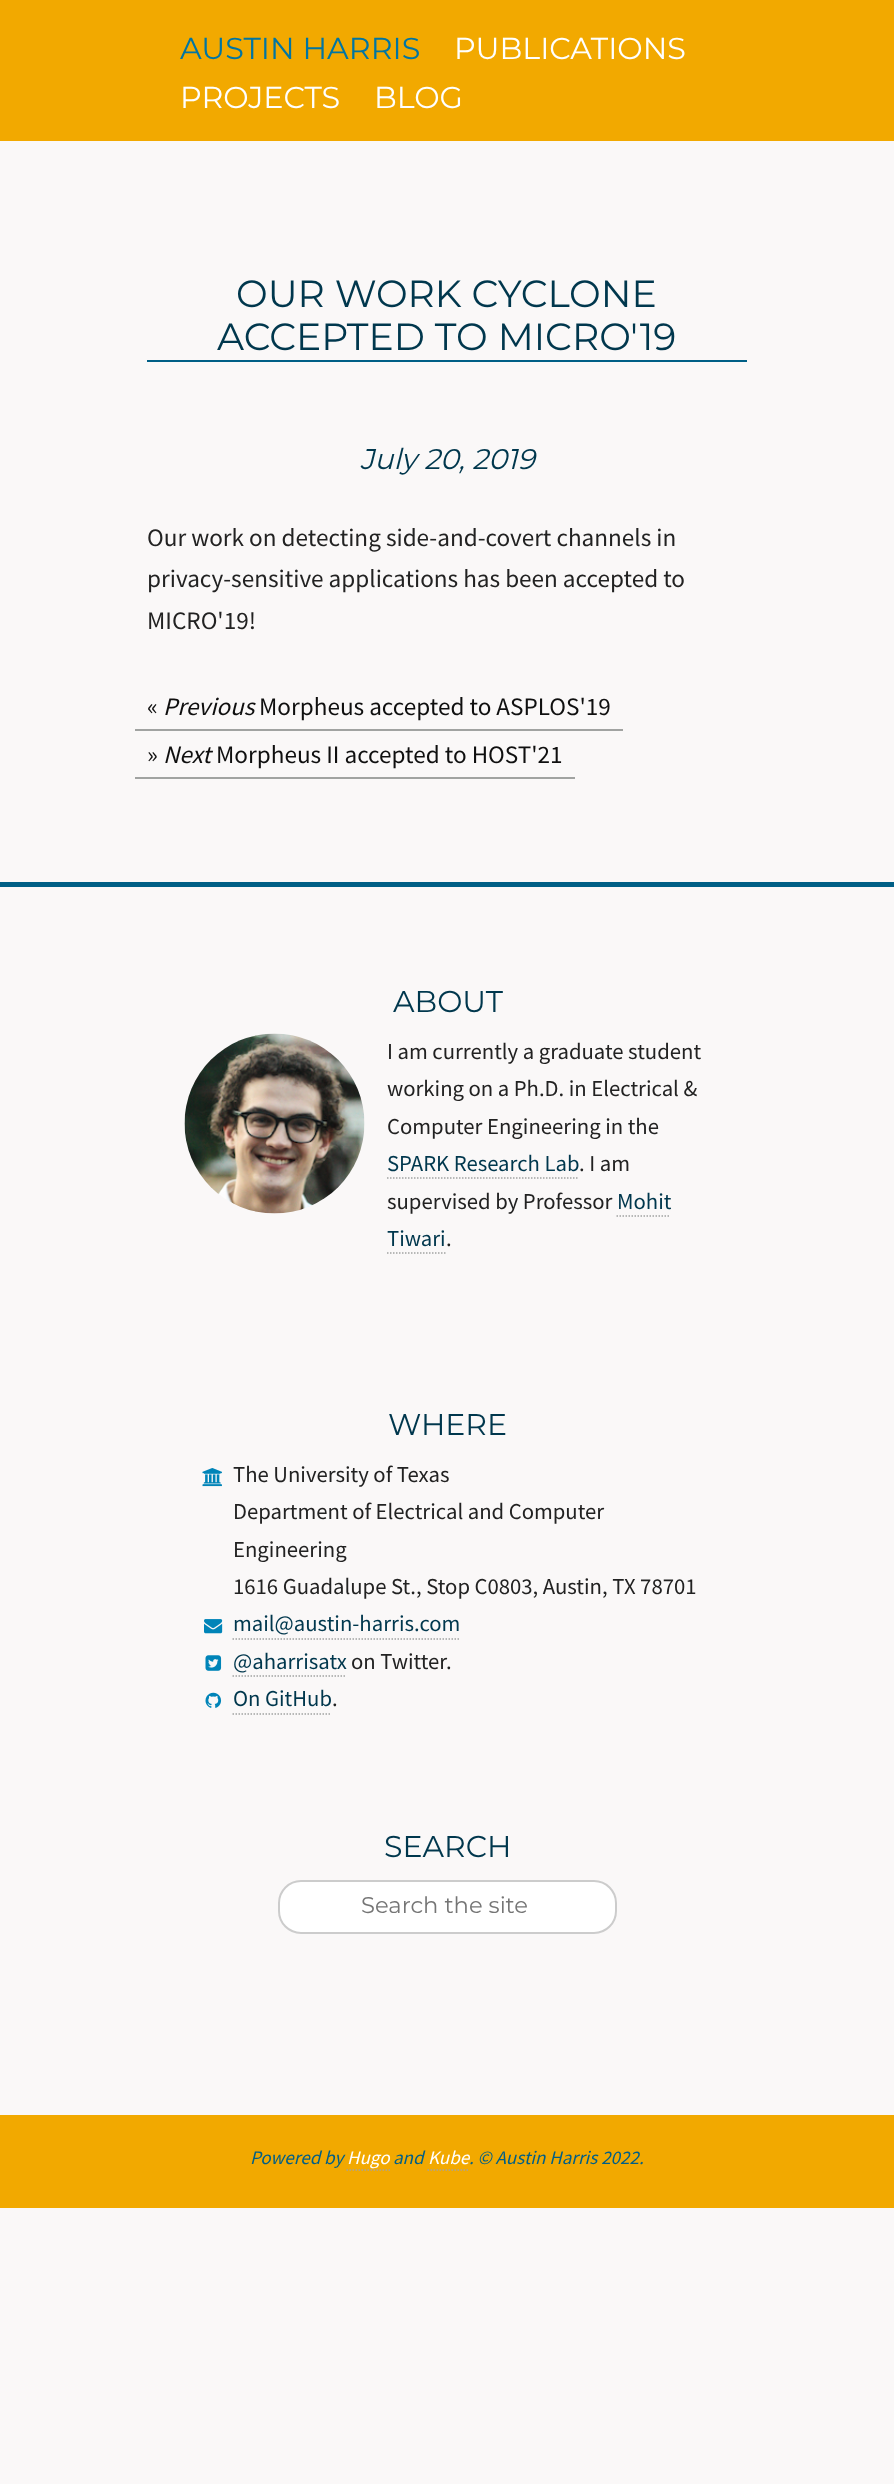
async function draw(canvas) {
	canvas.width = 894;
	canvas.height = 2484;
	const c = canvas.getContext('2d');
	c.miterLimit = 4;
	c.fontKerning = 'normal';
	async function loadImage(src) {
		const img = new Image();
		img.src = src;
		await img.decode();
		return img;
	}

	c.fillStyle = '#faf8f8';
	c.fillRect(0, 0, 894, 2484);
	c.fillStyle = '#f2a900';
	c.fillRect(0, 0, 894, 141);
	c.font = '30.25px Montserrat';
	c.fillStyle = '#0075a3';
	c.fillText('AUSTIN HARRIS', 180, 59);
	c.fillStyle = '#fff';
	for (const [text, x, y] of [
		['PUBLICATIONS', 454, 59],
		['PROJECTS', 180, 108],
		['BLOG', 374, 108],
	]) {
		c.fillText(text, x, y);
	}
	c.fillStyle = '#005f86';
	c.fillRect(147, 360, 600, 2);
	c.font = '37.75px Montserrat';
	c.fillStyle = '#00374d';
	c.fillText('OUR WORK CYCLONE', 236, 307);
	c.fillText('ACCEPTED TO MICRO\'19', 217, 350);
	c.font = 'italic 28.5px Montserrat';
	c.fillText('July 20, 2019', 360, 469);
	c.font = '25.2px Source Sans Pro';
	c.fillStyle = '#222';
	for (const [text, x, y] of [
		['Our work on detecting side-and-covert channels in', 147, 546],
		['privacy-sensitive applications has been accepted to', 147, 587],
		['MICRO\'19!', 147, 629],
	]) {
		c.fillText(text, x, y);
	}
	c.fillStyle = '#a1a3a1';
	c.fillRect(135, 729, 488, 2);
	c.fillStyle = '#0f0f0f';
	c.fillText('«', 147, 715);
	c.font = 'italic 25.2px Source Sans Pro';
	c.fillText('Previous', 163, 715);
	c.font = '25.2px Source Sans Pro';
	c.fillText('Morpheus accepted to ASPLOS\'19', 259, 715);
	c.fillStyle = '#a1a3a1';
	c.fillRect(135, 777, 440, 2);
	c.fillStyle = '#0f0f0f';
	c.fillText('»', 147, 763);
	c.font = 'italic 25.2px Source Sans Pro';
	c.fillText('Next', 163, 763);
	c.font = '25.2px Source Sans Pro';
	c.fillText('Morpheus II accepted to HOST\'21', 216, 763);
	c.fillStyle = '#005f86';
	c.fillRect(0, 882, 894, 5);
	c.font = '30px Montserrat';
	c.fillStyle = '#00374d';
	c.fillText('ABOUT', 393, 1012);
	c.drawImage(await loadImage('img1.png'), 184, 1033, 181, 181);
	c.font = '22.7px Source Sans Pro';
	c.fillStyle = '#222';
	for (const [text, x, y] of [
		['I am currently a graduate student', 387, 1059],
		['working on a Ph.D. in Electrical &', 387, 1096],
		['Computer Engineering in the', 387, 1134],
	]) {
		c.fillText(text, x, y);
	}
	c.fillStyle = '#00374d';
	c.fillText('SPARK Research Lab', 387, 1171);
	c.beginPath();
	c.moveTo(387, 1178);
	c.lineTo(579, 1178);
	c.strokeStyle = '#a1a3a1';
	c.lineWidth = 1.5;
	c.setLineDash([1.5, 1.5]);
	c.stroke();
	c.fillStyle = '#222';
	c.fillText('. I am', 579, 1171);
	c.fillText('supervised by Professor', 387, 1209);
	c.fillStyle = '#00374d';
	c.fillText('Mohit', 617, 1209);
	c.beginPath();
	c.moveTo(616.5, 1216);
	c.lineTo(670.5, 1216);
	c.stroke();
	c.fillText('Tiwari', 387, 1246);
	c.beginPath();
	c.moveTo(387, 1253);
	c.lineTo(445.5, 1253);
	c.stroke();
	c.fillStyle = '#222';
	c.fillText('.', 446, 1246);
	c.font = '30px Montserrat';
	c.fillStyle = '#00374d';
	c.fillText('WHERE', 388, 1435);
	c.drawImage(await loadImage('img2.png'), 202, 1468, 20, 19);
	c.font = '22.7px Source Sans Pro';
	c.fillStyle = '#222';
	for (const [text, x, y] of [
		['The University of Texas', 233, 1482],
		['Department of Electrical and Computer', 233, 1519],
		['Engineering', 233, 1557],
		['1616 Guadalupe St., Stop C0803, Austin, TX 78701', 233, 1594],
	]) {
		c.fillText(text, x, y);
	}
	c.drawImage(await loadImage('img3.png'), 204, 1619, 19, 15);
	c.fillStyle = '#00374d';
	c.fillText('mail@austin-harris.com', 233, 1631);
	c.beginPath();
	c.moveTo(232.5, 1639);
	c.lineTo(460.5, 1639);
	c.stroke();
	c.drawImage(await loadImage('img4.png'), 205, 1655, 17, 16);
	c.fillText('@aharrisatx', 233, 1669);
	c.beginPath();
	c.moveTo(232.5, 1676);
	c.lineTo(346.5, 1676);
	c.stroke();
	c.fillStyle = '#222';
	c.fillText('on Twitter.', 351, 1669);
	c.drawImage(await loadImage('img5.png'), 205, 1692, 17, 16);
	c.fillStyle = '#00374d';
	c.fillText('On GitHub', 233, 1706);
	c.beginPath();
	c.moveTo(232.5, 1714);
	c.lineTo(331.5, 1714);
	c.stroke();
	c.fillStyle = '#222';
	c.fillText('.', 332, 1706);
	c.font = '30px Montserrat';
	c.fillStyle = '#00374d';
	c.fillText('SEARCH', 384, 1857);
	c.fillStyle = '#fff';
	c.beginPath();
	c.roundRect(279, 1881, 337, 52, 22);
	c.fill();
	c.strokeStyle = '#ccc';
	c.lineWidth = 2;
	c.setLineDash([]);
	c.stroke();
	c.font = '22.7px Montserrat';
	c.fillStyle = '#757575';
	c.fillText('Search the site', 361, 1913);
	c.fillStyle = '#f2a900';
	c.fillRect(0, 2115, 894, 93);
	c.font = 'italic 19.1px Source Sans Pro';
	c.fillStyle = '#005f86';
	c.fillText('Powered by', 250, 2164);
	c.fillStyle = '#fff';
	c.fillText('Hugo', 347, 2164);
	c.beginPath();
	c.moveTo(346.5, 2170);
	c.lineTo(390, 2170);
	c.strokeStyle = '#a1a3a1';
	c.lineWidth = 1.5;
	c.setLineDash([1.5, 1.5]);
	c.stroke();
	c.fillStyle = '#005f86';
	c.fillText('and', 393, 2164);
	c.fillStyle = '#fff';
	c.fillText('Kube', 428, 2164);
	c.beginPath();
	c.moveTo(427.5, 2170);
	c.lineTo(469.5, 2170);
	c.stroke();
	c.fillStyle = '#005f86';
	c.fillText('. © Austin Harris 2022.', 469, 2164);
}

draw(document.querySelector('canvas'));
